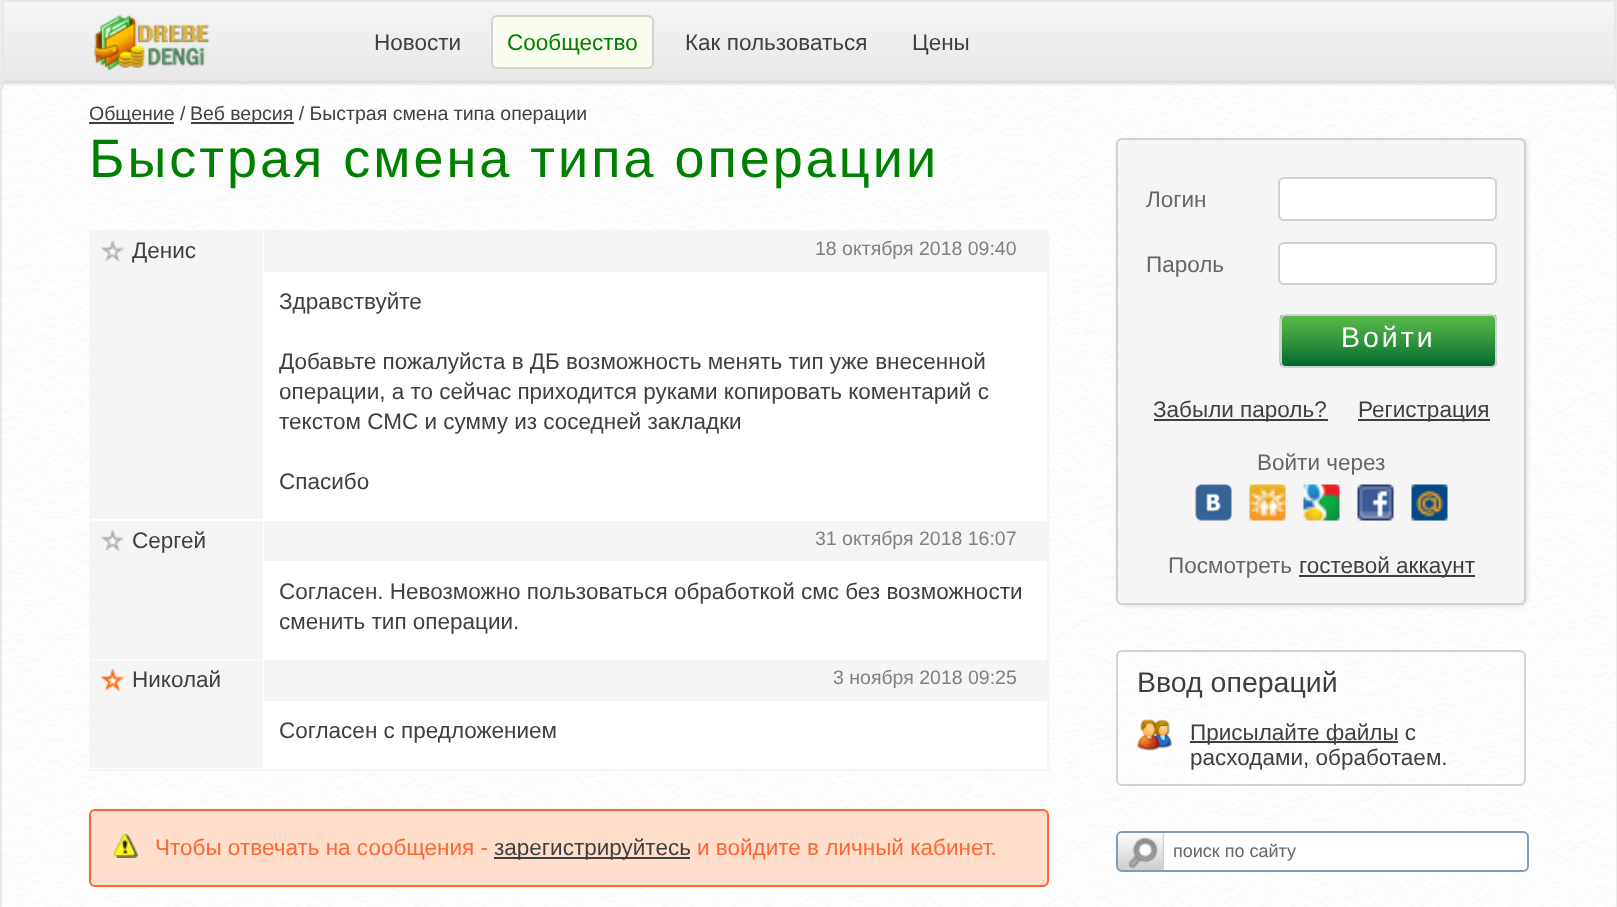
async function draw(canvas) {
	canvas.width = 1617;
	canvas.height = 907;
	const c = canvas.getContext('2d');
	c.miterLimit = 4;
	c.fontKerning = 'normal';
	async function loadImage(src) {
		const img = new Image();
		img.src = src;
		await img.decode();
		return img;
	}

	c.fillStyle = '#fff';
	c.fillRect(0, 0, 1617, 907);
	c.drawImage(await loadImage('img1.png'), 2, 82, 1614, 825);
	c.fillStyle = '#eaeaea';
	c.fillRect(1616, 0, 1, 907);
	c.fillRect(0, 0, 2, 907);
	c.drawImage(await loadImage('img2.png'), 1, 1, 1613, 85);
	for (const [x, y, w, h, color] of [
		[2, 0, 1614, 2, '#e7e7e7'],
		[1614, 0, 2, 89, '#e7e7e7'],
		[2, 0, 2, 89, '#e7e7e7'],
	]) {
		c.fillStyle = color;
		c.fillRect(x, y, w, h);
	}
	c.drawImage(await loadImage('img3.png'), 94, 15, 115, 56);
	c.font = '22.5px Liberation Sans';
	c.fillStyle = '#3f3f3f';
	c.fillText('Новости', 374, 50);
	c.fillStyle = '#fafced';
	c.beginPath();
	c.roundRect(492, 16, 161, 52, 5);
	c.fill();
	c.strokeStyle = '#d1d1d1';
	c.lineWidth = 2;
	c.stroke();
	c.fillStyle = '#008000';
	c.fillText('Сообщество', 507, 50);
	c.fillStyle = '#3f3f3f';
	c.fillText('Как пользоваться', 685, 50);
	c.fillText('Цены', 912, 50);
	c.fillRect(89, 122, 85, 2);
	c.font = '19.5px Liberation Sans';
	c.fillText('Общение /', 89, 120);
	c.fillRect(191, 122, 103, 2);
	c.fillText('Веб версия / Быстрая смена типа операции', 190, 120);
	c.letterSpacing = '3px';
	c.font = '54px Liberation Sans';
	c.fillStyle = '#008000';
	c.fillText('Быстрая смена типа операции', 89, 177);
	c.fillStyle = '#fff';
	c.fillRect(91, 272, 956, 497);
	c.strokeStyle = '#f5f5f5';
	c.strokeRect(90, 231, 958, 539);
	c.fillStyle = '#f5f5f5';
	c.fillRect(91, 232, 172, 287);
	c.fillStyle = '#fff';
	c.fillRect(263, 231, 2, 40);
	c.drawImage(await loadImage('img4.png'), 100, 240, 25, 22);
	c.letterSpacing = '0px';
	c.font = '22.5px Liberation Sans';
	c.fillStyle = '#3f3f3f';
	c.fillText('Денис', 132, 258);
	c.fillStyle = '#f5f5f5';
	c.fillRect(264, 231, 783, 41);
	c.font = '19.5px Liberation Sans';
	c.fillStyle = '#808080';
	c.fillText('18 октября 2018 09:40', 815, 255);
	c.font = '22.5px Liberation Sans';
	c.fillStyle = '#3f3f3f';
	for (const [text, x, y] of [
		['Здравствуйте', 279, 309],
		['Добавьте пожалуйста в ДБ возможность менять тип уже внесенной', 279, 369],
		['операции, а то сейчас приходится руками копировать коментарий с', 279, 399],
		['текстом СМС и сумму из соседней закладки', 279, 429],
		['Спасибо', 279, 489],
	]) {
		c.fillText(text, x, y);
	}
	c.fillStyle = '#f5f5f5';
	c.fillRect(91, 521, 172, 138);
	c.drawImage(await loadImage('img5.png'), 100, 529, 25, 23);
	c.fillStyle = '#3f3f3f';
	c.fillText('Сергей', 132, 548);
	c.fillStyle = '#f5f5f5';
	c.fillRect(264, 521, 783, 40);
	c.font = '19.5px Liberation Sans';
	c.fillStyle = '#808080';
	c.fillText('31 октября 2018 16:07', 815, 545);
	c.font = '22.5px Liberation Sans';
	c.fillStyle = '#3f3f3f';
	c.fillText('Согласен. Невозможно пользоваться обработкой смс без возможности', 279, 599);
	c.fillText('сменить тип операции.', 279, 629);
	c.fillStyle = '#f5f5f5';
	c.fillRect(91, 660, 172, 108);
	c.drawImage(await loadImage('img6.png'), 100, 668, 25, 24);
	c.fillStyle = '#3f3f3f';
	c.fillText('Николай', 132, 687);
	c.fillStyle = '#f5f5f5';
	c.fillRect(264, 660, 783, 41);
	c.font = '19.5px Liberation Sans';
	c.fillStyle = '#808080';
	c.fillText('3 ноября 2018 09:25', 833, 684);
	c.font = '22.5px Liberation Sans';
	c.fillStyle = '#3f3f3f';
	c.fillText('Согласен с предложением', 279, 738);
	c.fillStyle = '#ffdecc';
	c.beginPath();
	c.roundRect(89, 809, 960, 78, 6);
	c.fill();
	c.drawImage(await loadImage('img7.png'), 113, 833, 25, 25);
	c.beginPath();
	c.roundRect(90, 810, 958, 76, 5);
	c.strokeStyle = '#f63';
	c.stroke();
	c.fillStyle = '#f63';
	c.fillText('Чтобы отвечать на сообщения -', 155, 855);
	c.fillStyle = '#3f3f3f';
	c.fillRect(494, 857, 196, 2);
	c.fillText('зарегистрируйтесь', 494, 855);
	c.fillStyle = '#f63';
	c.fillText('и войдите в личный кабинет.', 697, 855);
	c.drawImage(await loadImage('img8.png'), 1094, 89, 434, 805);
	c.fillStyle = '#ddd';
	c.filter = 'blur(2px)';
	c.beginPath();
	c.roundRect(1118, 140, 409, 466, 6);
	c.fill();
	c.filter = 'none';
	c.fillStyle = '#f5f5f5';
	c.beginPath();
	c.roundRect(1117, 139, 408, 465, 5);
	c.fill();
	c.strokeStyle = '#d1d1d1';
	c.stroke();
	c.fillStyle = '#666';
	c.fillText('Логин', 1146, 207);
	c.fillStyle = '#fff';
	c.beginPath();
	c.roundRect(1279, 178, 217, 42, 5);
	c.fill();
	c.stroke();
	c.fillStyle = '#666';
	c.fillText('Пароль', 1146, 272);
	c.fillStyle = '#fff';
	c.beginPath();
	c.roundRect(1279, 243, 217, 41, 5);
	c.fill();
	c.stroke();
	c.drawImage(await loadImage('img9.png'), 1279, 315, 218, 53);
	c.beginPath();
	c.roundRect(1281, 315, 215, 52, 5);
	c.stroke();
	c.letterSpacing = '3px';
	c.font = '28.5px Liberation Sans';
	c.fillText('Войти', 1341, 347);
	c.fillStyle = '#3f3f3f';
	c.fillRect(1154, 419, 174, 2);
	c.letterSpacing = '0px';
	c.font = '22.5px Liberation Sans';
	c.fillText('Забыли пароль?', 1153, 417);
	c.fillRect(1358, 419, 132, 2);
	c.fillText('Регистрация', 1358, 417);
	c.fillStyle = '#666';
	c.fillText('Войти через', 1257, 470);
	c.drawImage(await loadImage('img10.png'), 1195, 484, 37, 37);
	c.drawImage(await loadImage('img11.png'), 1249, 484, 37, 37);
	c.drawImage(await loadImage('img12.png'), 1303, 484, 37, 37);
	c.drawImage(await loadImage('img13.png'), 1357, 484, 37, 37);
	c.drawImage(await loadImage('img14.png'), 1411, 484, 37, 37);
	c.fillText('Посмотреть', 1168, 573);
	c.fillStyle = '#3f3f3f';
	c.fillRect(1299, 575, 176, 2);
	c.fillText('гостевой аккаунт', 1299, 573);
	c.beginPath();
	c.roundRect(1117, 651, 408, 134, 5);
	c.stroke();
	c.font = '28.5px Liberation Sans';
	c.fillText('Ввод операций', 1137, 692);
	c.drawImage(await loadImage('img15.png'), 1137, 717, 35, 34);
	c.fillRect(1190, 741, 208, 2);
	c.font = '22.5px Liberation Sans';
	c.fillText('Присылайте файлы с', 1190, 740);
	c.fillText('расходами, обработаем.', 1190, 765);
	c.fillStyle = '#fff';
	c.beginPath();
	c.roundRect(1116, 831, 413, 41, 6);
	c.fill();
	c.drawImage(await loadImage('img16.png'), 1117, 832, 47, 40);
	c.beginPath();
	c.roundRect(1117, 832, 411, 39, 5);
	c.strokeStyle = '#7f9db9';
	c.stroke();
	c.font = '18px Liberation Sans';
	c.fillStyle = '#666';
	c.fillText('поиск по сайту', 1173, 857);
}

draw(document.querySelector('canvas'));
